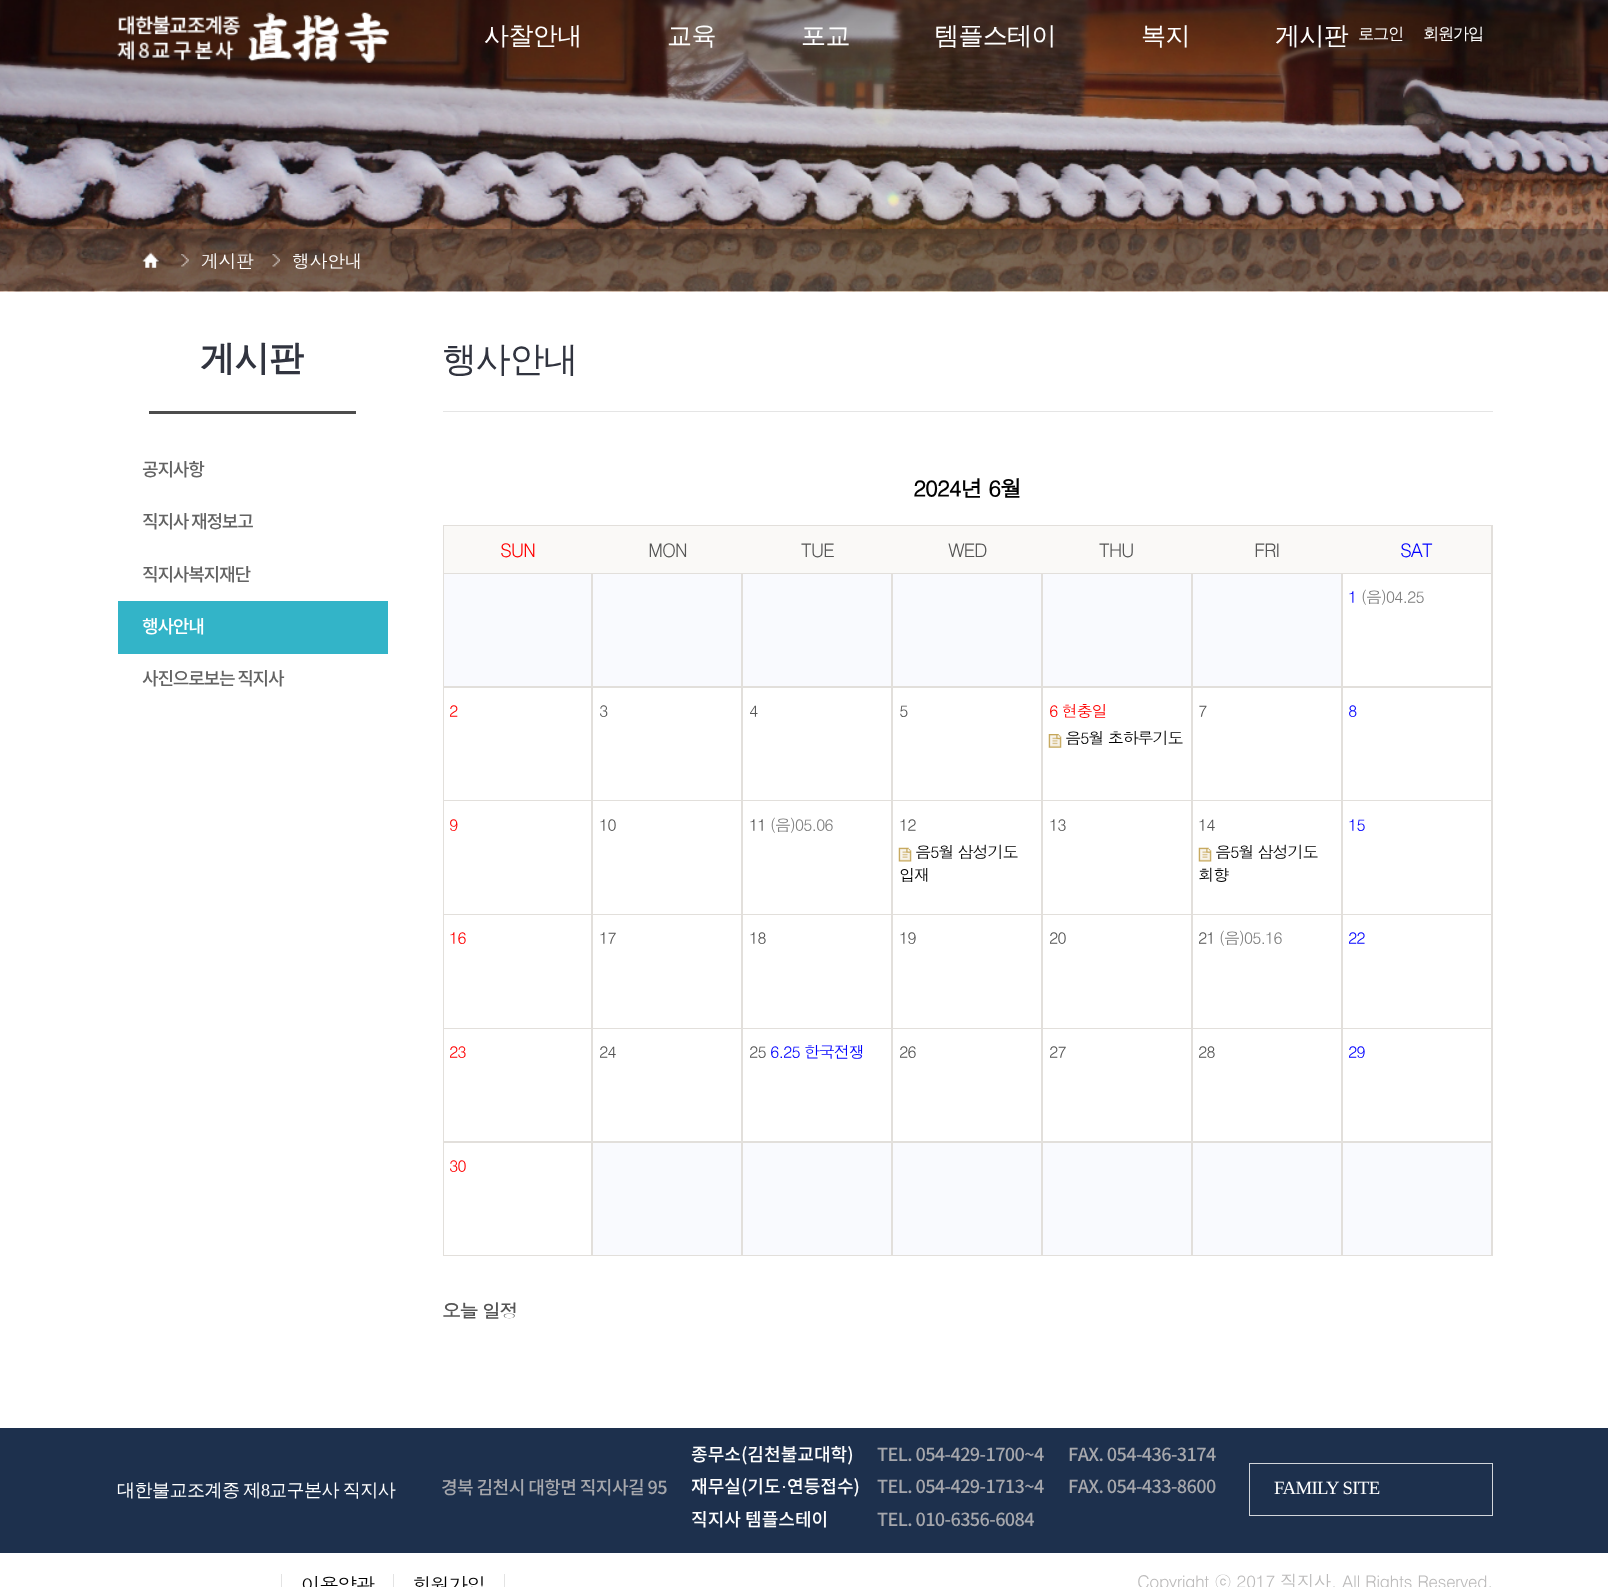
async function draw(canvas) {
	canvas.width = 1608;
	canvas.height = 1587;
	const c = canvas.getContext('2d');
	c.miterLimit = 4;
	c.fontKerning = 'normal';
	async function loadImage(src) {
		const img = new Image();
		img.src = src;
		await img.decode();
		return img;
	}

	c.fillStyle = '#fff';
	c.fillRect(0, 0, 1608, 1587);
	c.drawImage(await loadImage('img2.png'), 0, 0, 1608, 292);
	c.drawImage(await loadImage('img1.png'), 117, 12, 272, 51);
	c.letterSpacing = '-0.6px';
	c.font = '500 25px WenQuanYi Zen Hei';
	for (const [text, x, y] of [
		['사찰안내', 484, 44],
		['교육', 667, 44],
		['포교', 801, 44],
		['템플스테이', 934, 44],
		['복지', 1141, 44],
		['게시판', 1275, 44],
	]) {
		c.fillText(text, x, y);
	}
	c.letterSpacing = '-1.25px';
	c.font = '500 16.25px WenQuanYi Zen Hei';
	c.fillText('로그인', 1358, 39);
	c.fillText('회원가입', 1423, 39);
	c.fillStyle = '#3e383580';
	c.fillRect(0, 229, 1608, 62);
	c.drawImage(await loadImage('img3.png'), 142, 252, 17, 16);
	c.drawImage(await loadImage('img4.png'), 181, 254, 8, 13);
	c.letterSpacing = '-0.6px';
	c.font = '18.1px Dotum';
	c.fillStyle = '#fff';
	c.fillText('게시판', 201, 268);
	c.drawImage(await loadImage('img5.png'), 272, 254, 8, 13);
	c.fillText('행사안내', 292, 268);
	c.fillStyle = '#4d4d4d';
	c.fillRect(149, 411, 207, 3);
	c.font = 'bold 35px WenQuanYi Zen Hei';
	c.fillStyle = '#31343f';
	c.fillText('게시판', 200, 370);
	c.letterSpacing = '-1.25px';
	c.font = '500 18.1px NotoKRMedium';
	c.fillStyle = '#636363';
	for (const [text, x, y] of [
		['공지사항', 142, 476],
		['직지사 재정보고', 142, 528],
		['직지사복지재단', 142, 581],
	]) {
		c.fillText(text, x, y);
	}
	c.fillStyle = '#33b4c8';
	c.fillRect(118, 601, 270, 53);
	c.fillStyle = '#fff';
	c.fillText('행사안내', 142, 633);
	c.fillStyle = '#636363';
	c.fillText('사진으로보는 직지사', 142, 685);
	c.fillStyle = '#e5e5e5';
	c.fillRect(443, 411, 1050, 1);
	c.font = '500 35px WenQuanYi Zen Hei';
	c.fillStyle = '#31343f';
	c.fillText('행사안내', 442, 371);
	c.font = 'bold 22.5px Dotum';
	c.fillStyle = '#000';
	c.fillText('2024년 6월', 913, 497);
	c.fillStyle = '#e2dfdb';
	c.fillRect(443, 525, 1050, 731);
	c.fillStyle = '#faf9f7';
	c.fillRect(444, 526, 1047, 47);
	c.font = '18.75px Dotum';
	c.fillStyle = '#f00';
	c.fillText('SUN', 500, 557);
	c.fillStyle = '#555';
	for (const [text, x, y] of [
		['MON', 648, 557],
		['TUE', 801, 557],
		['WED', 948, 557],
		['THU', 1099, 557],
		['FRI', 1254, 557],
	]) {
		c.fillText(text, x, y);
	}
	c.fillStyle = '#00f';
	c.fillText('SAT', 1400, 557);
	for (const [x, y, w, h, color] of [
		[444, 574, 147, 112, '#f9fafe'],
		[593, 574, 148, 112, '#f9fafe'],
		[743, 574, 148, 112, '#f9fafe'],
		[893, 574, 148, 112, '#f9fafe'],
		[1043, 574, 148, 112, '#f9fafe'],
		[1193, 574, 148, 112, '#f9fafe'],
		[1343, 574, 148, 112, '#fff'],
	]) {
		c.fillStyle = color;
		c.fillRect(x, y, w, h);
	}
	c.font = '16.25px Dotum';
	c.fillStyle = '#00f';
	c.fillText('1', 1348, 603);
	c.fillStyle = '#808080';
	c.fillText('(음)04.25', 1361, 603);
	c.fillStyle = '#fff';
	c.fillRect(444, 688, 147, 112);
	c.fillStyle = '#f00';
	c.fillText('2', 449, 717);
	c.fillStyle = '#fff';
	c.fillRect(593, 688, 148, 112);
	c.fillStyle = '#555';
	c.fillText('3', 599, 717);
	c.fillStyle = '#fff';
	c.fillRect(743, 688, 148, 112);
	c.fillStyle = '#555';
	c.fillText('4', 749, 717);
	c.fillStyle = '#fff';
	c.fillRect(893, 688, 148, 112);
	c.fillStyle = '#555';
	c.fillText('5', 899, 717);
	c.fillStyle = '#fff';
	c.fillRect(1043, 688, 148, 112);
	c.fillStyle = '#f00';
	c.fillText('6 현충일', 1049, 717);
	c.drawImage(await loadImage('img6.png'), 1048, 734, 14, 14);
	c.fillStyle = '#000';
	c.fillText('음5월 초하루기도', 1065, 744);
	c.fillStyle = '#fff';
	c.fillRect(1193, 688, 148, 112);
	c.fillStyle = '#555';
	c.fillText('7', 1198, 717);
	c.fillStyle = '#fff';
	c.fillRect(1343, 688, 148, 112);
	c.fillStyle = '#00f';
	c.fillText('8', 1348, 717);
	c.fillStyle = '#fff';
	c.fillRect(444, 801, 147, 113);
	c.fillStyle = '#f00';
	c.fillText('9', 449, 831);
	c.fillStyle = '#fff';
	c.fillRect(593, 801, 148, 113);
	c.fillStyle = '#555';
	c.fillText('10', 599, 831);
	c.fillStyle = '#fff';
	c.fillRect(743, 801, 148, 113);
	c.fillStyle = '#555';
	c.fillText('11', 749, 831);
	c.fillStyle = '#808080';
	c.fillText('(음)05.06', 770, 831);
	c.fillStyle = '#fff';
	c.fillRect(893, 801, 148, 113);
	c.fillStyle = '#555';
	c.fillText('12', 899, 831);
	c.drawImage(await loadImage('img7.png'), 898, 847, 14, 15);
	c.fillStyle = '#000';
	c.fillText('음5월 삼성기도', 915, 858);
	c.fillText('입재', 899, 881);
	c.fillStyle = '#fff';
	c.fillRect(1043, 801, 148, 113);
	c.fillStyle = '#555';
	c.fillText('13', 1049, 831);
	c.fillStyle = '#fff';
	c.fillRect(1193, 801, 148, 113);
	c.fillStyle = '#555';
	c.fillText('14', 1198, 831);
	c.drawImage(await loadImage('img8.png'), 1198, 847, 14, 15);
	c.fillStyle = '#000';
	c.fillText('음5월 삼성기도', 1215, 858);
	c.fillText('회향', 1198, 881);
	c.fillStyle = '#fff';
	c.fillRect(1343, 801, 148, 113);
	c.fillStyle = '#00f';
	c.fillText('15', 1348, 831);
	c.fillStyle = '#fff';
	c.fillRect(444, 915, 147, 113);
	c.fillStyle = '#f00';
	c.fillText('16', 449, 944);
	c.fillStyle = '#fff';
	c.fillRect(593, 915, 148, 113);
	c.fillStyle = '#555';
	c.fillText('17', 599, 944);
	c.fillStyle = '#fff';
	c.fillRect(743, 915, 148, 113);
	c.fillStyle = '#555';
	c.fillText('18', 749, 944);
	c.fillStyle = '#fff';
	c.fillRect(893, 915, 148, 113);
	c.fillStyle = '#555';
	c.fillText('19', 899, 944);
	c.fillStyle = '#fff';
	c.fillRect(1043, 915, 148, 113);
	c.fillStyle = '#555';
	c.fillText('20', 1049, 944);
	c.fillStyle = '#fff';
	c.fillRect(1193, 915, 148, 113);
	c.fillStyle = '#555';
	c.fillText('21', 1198, 944);
	c.fillStyle = '#808080';
	c.fillText('(음)05.16', 1219, 944);
	c.fillStyle = '#fff';
	c.fillRect(1343, 915, 148, 113);
	c.fillStyle = '#00f';
	c.fillText('22', 1348, 944);
	c.fillStyle = '#fff';
	c.fillRect(444, 1029, 147, 112);
	c.fillStyle = '#f00';
	c.fillText('23', 449, 1058);
	c.fillStyle = '#fff';
	c.fillRect(593, 1029, 148, 112);
	c.fillStyle = '#555';
	c.fillText('24', 599, 1058);
	c.fillStyle = '#fff';
	c.fillRect(743, 1029, 148, 112);
	c.fillStyle = '#555';
	c.fillText('25', 749, 1058);
	c.fillStyle = '#00f';
	c.fillText('6.25 한국전쟁', 770, 1058);
	c.fillStyle = '#fff';
	c.fillRect(893, 1029, 148, 112);
	c.fillStyle = '#555';
	c.fillText('26', 899, 1058);
	c.fillStyle = '#fff';
	c.fillRect(1043, 1029, 148, 112);
	c.fillStyle = '#555';
	c.fillText('27', 1049, 1058);
	c.fillStyle = '#fff';
	c.fillRect(1193, 1029, 148, 112);
	c.fillStyle = '#555';
	c.fillText('28', 1198, 1058);
	c.fillStyle = '#fff';
	c.fillRect(1343, 1029, 148, 112);
	c.fillStyle = '#00f';
	c.fillText('29', 1348, 1058);
	c.fillStyle = '#fff';
	c.fillRect(444, 1143, 147, 112);
	c.fillStyle = '#f00';
	c.fillText('30', 449, 1172);
	for (const [x, y, w, h, color] of [
		[593, 1143, 148, 112, '#f9fafe'],
		[743, 1143, 148, 112, '#f9fafe'],
		[893, 1143, 148, 112, '#f9fafe'],
		[1043, 1143, 148, 112, '#f9fafe'],
		[1193, 1143, 148, 112, '#f9fafe'],
		[1343, 1143, 148, 112, '#f9fafe'],
	]) {
		c.fillStyle = color;
		c.fillRect(x, y, w, h);
	}
	c.font = 'bold 18.75px Dotum';
	c.fillStyle = '#555';
	c.fillText('오늘 일정', 442, 1318);
	c.fillStyle = '#1d304d';
	c.fillRect(0, 1428, 1608, 125);
	c.letterSpacing = '-0.6px';
	c.wordSpacing = '-1px';
	c.font = '500 18.1px WenQuanYi Zen Hei';
	c.fillStyle = '#fff';
	c.fillText('대한불교조계종 제', 117, 1496);
	c.wordSpacing = '0px';
	c.font = '18.1px Liberation Serif';
	c.fillText('8', 261, 1496);
	c.wordSpacing = '-1px';
	c.font = '500 18.1px WenQuanYi Zen Hei';
	c.fillText('교구본사 직지사', 269, 1496);
	c.wordSpacing = '0px';
	c.font = '500 18.1px NotoKRMedium';
	c.fillStyle = '#a6a7ac';
	c.fillText('경북 김천시 대항면 직지사길 95', 441, 1494);
	c.letterSpacing = '0px';
	c.fillStyle = '#fff';
	c.fillText('종무소(김천불교대학)', 691, 1461);
	c.letterSpacing = '-0.6px';
	c.fillStyle = '#a6a7ac';
	c.fillText('TEL. 054-429-1700~4', 877, 1461);
	c.fillText('FAX. 054-436-3174', 1068, 1461);
	c.letterSpacing = '0px';
	c.fillStyle = '#fff';
	c.fillText('재무실(기도', 691, 1493);
	c.font = '18.1px Liberation Serif';
	c.fillText('·', 781, 1493);
	c.font = '500 18.1px NotoKRMedium';
	c.fillText('연등접수)', 787, 1493);
	c.letterSpacing = '-0.6px';
	c.fillStyle = '#a6a7ac';
	c.fillText('TEL. 054-429-1713~4', 877, 1493);
	c.fillText('FAX. 054-433-8600', 1068, 1493);
	c.letterSpacing = '0px';
	c.fillStyle = '#fff';
	c.fillText('직지사 템플스테이', 691, 1526);
	c.letterSpacing = '-0.6px';
	c.fillStyle = '#a6a7ac';
	c.fillText('TEL. 010-6356-6084', 877, 1526);
	c.strokeStyle = '#d2d6db';
	c.strokeRect(1249.5, 1463.5, 243, 52);
	c.font = '18.75px Liberation Serif';
	c.fillStyle = '#fff';
	c.fillText('FAMILY SITE', 1274, 1494);
	c.fillStyle = '#e3e3e3';
	c.fillRect(281, 1574, 1, 13);
	c.letterSpacing = '-1.25px';
	c.font = '19.5px Dotum';
	c.fillStyle = '#000';
	c.fillText('이용약관', 301, 1592);
	c.fillStyle = '#e3e3e3';
	c.fillRect(393, 1574, 1, 13);
	c.fillStyle = '#000';
	c.fillText('회원가입', 412, 1592);
	c.fillStyle = '#e3e3e3';
	c.fillRect(504, 1574, 1, 13);
	c.letterSpacing = '-0.6px';
	c.font = '17.5px Dotum';
	c.fillStyle = '#bcbbbb';
	c.fillText('Copyright ⓒ 2017 직지사. All Rights Reserved.', 1137, 1588);
}

draw(document.querySelector('canvas'));
